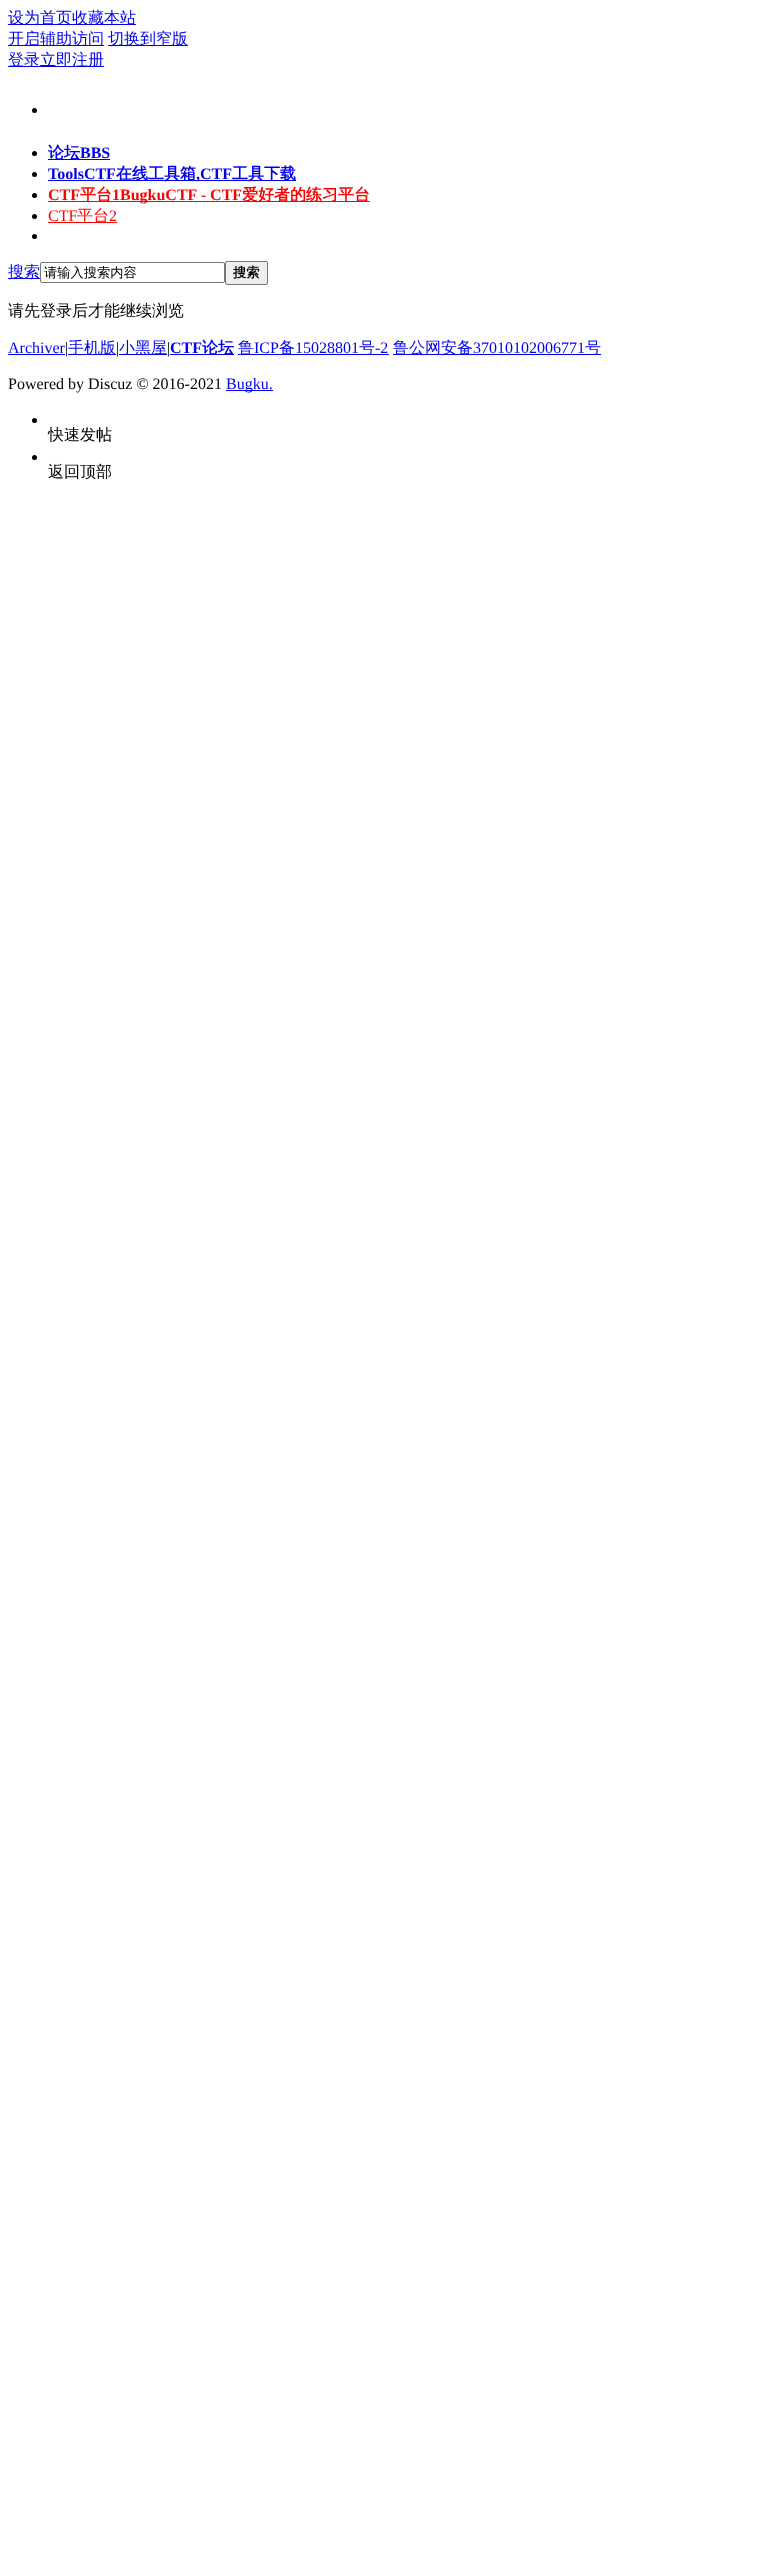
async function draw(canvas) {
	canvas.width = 780;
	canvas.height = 2558;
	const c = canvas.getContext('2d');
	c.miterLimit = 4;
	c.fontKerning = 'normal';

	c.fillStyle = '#fff';
	c.fillRect(0, 0, 780, 2558);
	c.fillStyle = '#00e';
	c.fillRect(8, 24, 128, 1);
	c.font = '500 16px WenQuanYi Zen Hei';
	c.fillText('设为首页收藏本站', 8, 23);
	c.fillRect(8, 45, 96, 1);
	c.fillText('开启辅助访问', 8, 44);
	c.fillRect(108, 45, 80, 1);
	c.fillText('切换到窄版', 108, 44);
	c.fillRect(8, 66, 96, 1);
	c.fillText('登录立即注册', 8, 65);
	c.fillStyle = '#000';
	c.beginPath();
	c.arc(34.5, 110.5, 2.5, 0, 2 * Math.PI);
	c.fill();
	c.beginPath();
	c.arc(34.5, 153.5, 2.5, 0, 2 * Math.PI);
	c.fill();
	c.fillStyle = '#00e';
	c.fillRect(48, 159, 62, 1);
	c.font = 'bold 16px WenQuanYi Zen Hei';
	c.fillText('论坛', 48, 158);
	c.font = 'bold 16px Liberation Serif';
	c.fillText('BBS', 80, 158);
	c.fillStyle = '#000';
	c.beginPath();
	c.arc(34.5, 174.5, 2.5, 0, 2 * Math.PI);
	c.fill();
	c.fillStyle = '#00e';
	c.fillText('ToolsCTF', 48, 179);
	c.fillRect(48, 180, 248, 1);
	c.font = 'bold 16px WenQuanYi Zen Hei';
	c.fillText('在线工具箱', 116, 179);
	c.font = 'bold 16px Liberation Serif';
	c.fillText(',CTF', 196, 179);
	c.font = 'bold 16px WenQuanYi Zen Hei';
	c.fillText('工具下载', 232, 179);
	c.fillStyle = '#000';
	c.beginPath();
	c.arc(34.5, 195.5, 2.5, 0, 2 * Math.PI);
	c.fill();
	c.font = 'bold 16px Liberation Serif';
	c.fillStyle = '#f00';
	c.fillText('CTF', 48, 200);
	c.fillRect(48, 201, 322, 1);
	c.font = 'bold 16px WenQuanYi Zen Hei';
	c.fillText('平台', 80, 200);
	c.font = 'bold 16px Liberation Serif';
	c.fillText('1BugkuCTF - CTF', 112, 200);
	c.font = 'bold 16px WenQuanYi Zen Hei';
	c.fillText('爱好者的练习平台', 242, 200);
	c.fillStyle = '#000';
	c.beginPath();
	c.arc(34.5, 216.5, 2.5, 0, 2 * Math.PI);
	c.fill();
	c.font = '16px Liberation Serif';
	c.fillStyle = '#f00';
	c.fillText('CTF', 48, 221);
	c.fillRect(48, 222, 69, 1);
	c.font = '500 16px WenQuanYi Zen Hei';
	c.fillText('平台', 77, 221);
	c.font = '16px Liberation Serif';
	c.fillText('2', 109, 221);
	c.fillStyle = '#000';
	c.beginPath();
	c.arc(34.5, 236.5, 2.5, 0, 2 * Math.PI);
	c.fill();
	c.fillStyle = '#00e';
	c.fillRect(8, 278, 32, 1);
	c.font = '500 16px WenQuanYi Zen Hei';
	c.fillText('搜索', 8, 277);
	c.beginPath();
	c.roundRect(40.5, 262.5, 184, 20, 1.5);
	c.strokeStyle = '#767676';
	c.stroke();
	c.font = '500 13.25px WenQuanYi Zen Hei';
	c.fillStyle = '#000';
	c.fillText('请输入搜索内容', 44, 277);
	c.fillStyle = '#efefef';
	c.beginPath();
	c.roundRect(225.5, 261.5, 42, 23, 1.5);
	c.fill();
	c.stroke();
	c.font = 'bold 13.25px WenQuanYi Zen Hei';
	c.fillStyle = '#000';
	c.fillText('搜索', 233, 277);
	c.font = '500 16px WenQuanYi Zen Hei';
	c.fillText('请先登录后才能继续浏览', 8, 316);
	c.font = '16px Liberation Serif';
	c.fillStyle = '#00e';
	c.fillText('Archiver', 8, 353);
	c.fillRect(8, 354, 57, 1);
	c.fillStyle = '#000';
	c.fillText('|', 65, 353);
	c.fillStyle = '#00e';
	c.fillRect(68, 354, 48, 1);
	c.font = '500 16px WenQuanYi Zen Hei';
	c.fillText('手机版', 68, 353);
	c.font = '16px Liberation Serif';
	c.fillStyle = '#000';
	c.fillText('|', 116, 353);
	c.fillStyle = '#00e';
	c.fillRect(119, 354, 48, 1);
	c.font = '500 16px WenQuanYi Zen Hei';
	c.fillText('小黑屋', 119, 353);
	c.font = '16px Liberation Serif';
	c.fillStyle = '#000';
	c.fillText('|', 167, 353);
	c.font = 'bold 16px Liberation Serif';
	c.fillStyle = '#00e';
	c.fillText('CTF', 170, 353);
	c.fillRect(170, 354, 64, 1);
	c.font = 'bold 16px WenQuanYi Zen Hei';
	c.fillText('论坛', 202, 353);
	c.fillRect(238, 354, 151, 1);
	c.font = '500 16px WenQuanYi Zen Hei';
	c.fillText('鲁', 238, 353);
	c.font = '16px Liberation Serif';
	c.fillText('ICP', 254, 353);
	c.font = '500 16px WenQuanYi Zen Hei';
	c.fillText('备', 279, 353);
	c.font = '16px Liberation Serif';
	c.fillText('15028801', 295, 353);
	c.font = '500 16px WenQuanYi Zen Hei';
	c.fillText('号', 359, 353);
	c.font = '16px Liberation Serif';
	c.fillText('-2', 375, 353);
	c.fillRect(393, 354, 208, 1);
	c.font = '500 16px WenQuanYi Zen Hei';
	c.fillText('鲁公网安备', 393, 353);
	c.font = '16px Liberation Serif';
	c.fillText('37010102006771', 473, 353);
	c.font = '500 16px WenQuanYi Zen Hei';
	c.fillText('号', 585, 353);
	c.font = '16px Liberation Serif';
	c.fillStyle = '#000';
	c.fillText('Powered by Discuz © 2016-2021', 8, 389);
	c.fillStyle = '#00e';
	c.fillRect(226, 390, 47, 1);
	c.fillText('Bugku.', 226, 389);
	c.fillStyle = '#000';
	c.beginPath();
	c.arc(34.5, 420.5, 2.5, 0, 2 * Math.PI);
	c.fill();
	c.font = '500 16px WenQuanYi Zen Hei';
	c.fillText('快速发帖', 48, 440);
	c.beginPath();
	c.arc(34.5, 457.5, 2.5, 0, 2 * Math.PI);
	c.fill();
	c.fillText('返回顶部', 48, 477);
}

draw(document.querySelector('canvas'));
